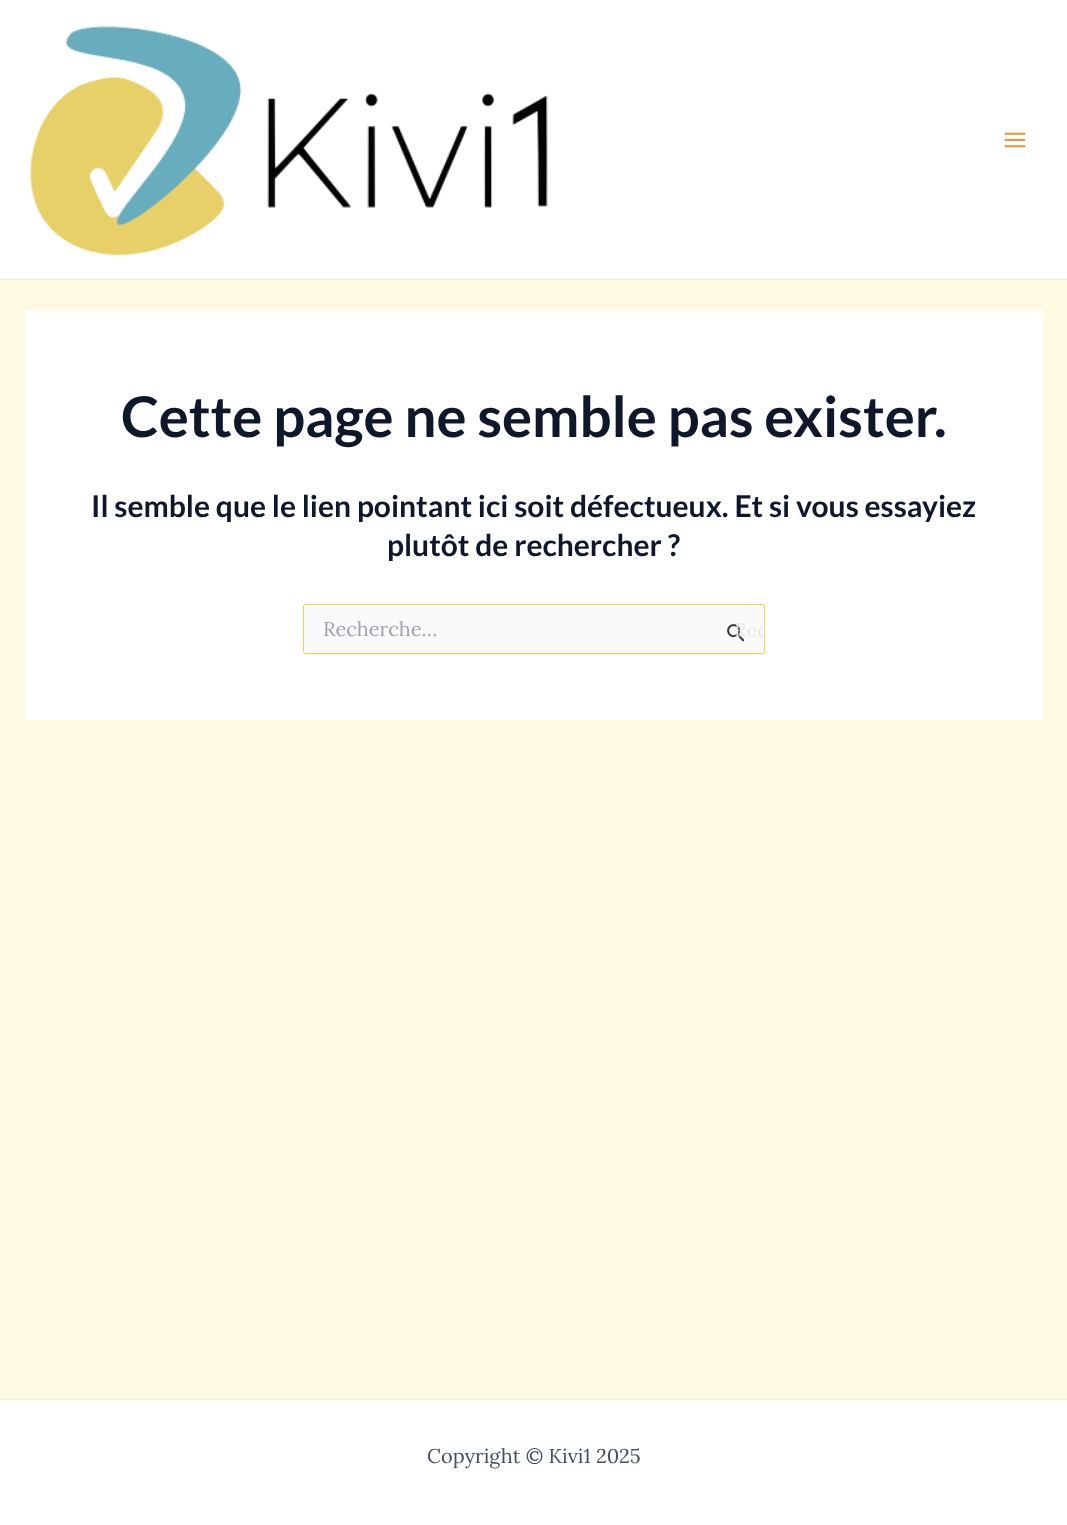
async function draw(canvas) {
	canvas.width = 1067;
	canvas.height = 1525;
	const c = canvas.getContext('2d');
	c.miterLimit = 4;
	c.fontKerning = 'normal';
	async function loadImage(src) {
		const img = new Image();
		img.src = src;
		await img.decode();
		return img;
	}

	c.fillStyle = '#fef9e1';
	c.fillRect(0, 0, 1067, 1525);
	c.fillStyle = '#fff';
	c.fillRect(0, 0, 1067, 279);
	c.fillStyle = '#f9f0c8';
	c.fillRect(0, 279, 1067, 1);
	c.drawImage(await loadImage('img1.png'), 29, 26, 519, 230);
	c.drawImage(await loadImage('img2.png'), 1004, 132, 22, 16);
	c.fillStyle = '#fff';
	c.fillRect(25, 310, 1018, 410);
	c.font = 'bold 56.25px Lato';
	c.fillStyle = '#0f172a';
	c.fillText('Cette page ne semble pas exister.', 121, 437);
	c.font = 'bold 30px Lato';
	c.fillText('Il semble que le lien pointant ici soit défectueux. Et si vous essayiez', 91, 517);
	c.fillText('plutôt de rechercher ?', 387, 556);
	c.fillStyle = '#0000000d';
	c.filter = 'blur(1px)';
	c.beginPath();
	c.roundRect(303, 605, 462, 50, 2.5);
	c.fill();
	c.filter = 'none';
	c.fillStyle = '#fafafa';
	c.beginPath();
	c.roundRect(303.5, 604.5, 461, 49, 2);
	c.fill();
	c.strokeStyle = '#e7d067';
	c.stroke();
	c.font = '20px Lora';
	c.fillStyle = '#9ca3af';
	c.fillText('Recherche…', 323, 636);
	c.drawImage(await loadImage('img3.png'), 727, 624, 17, 18);
	c.save();
	c.beginPath();
	c.roundRect(709, 604, 56, 52, 2.5);
	c.clip();
	c.fillStyle = '#e9e8e5';
	c.fillText('Rec', 734, 637);
	c.restore();
	c.fillStyle = '#fff';
	c.fillRect(0, 1400, 1067, 125);
	c.fillStyle = '#f9f0c8';
	c.fillRect(0, 1399, 1067, 1);
	c.fillStyle = '#454f5e';
	c.fillText('Copyright © Kivi1 2025', 427, 1463);
}

draw(document.querySelector('canvas'));
